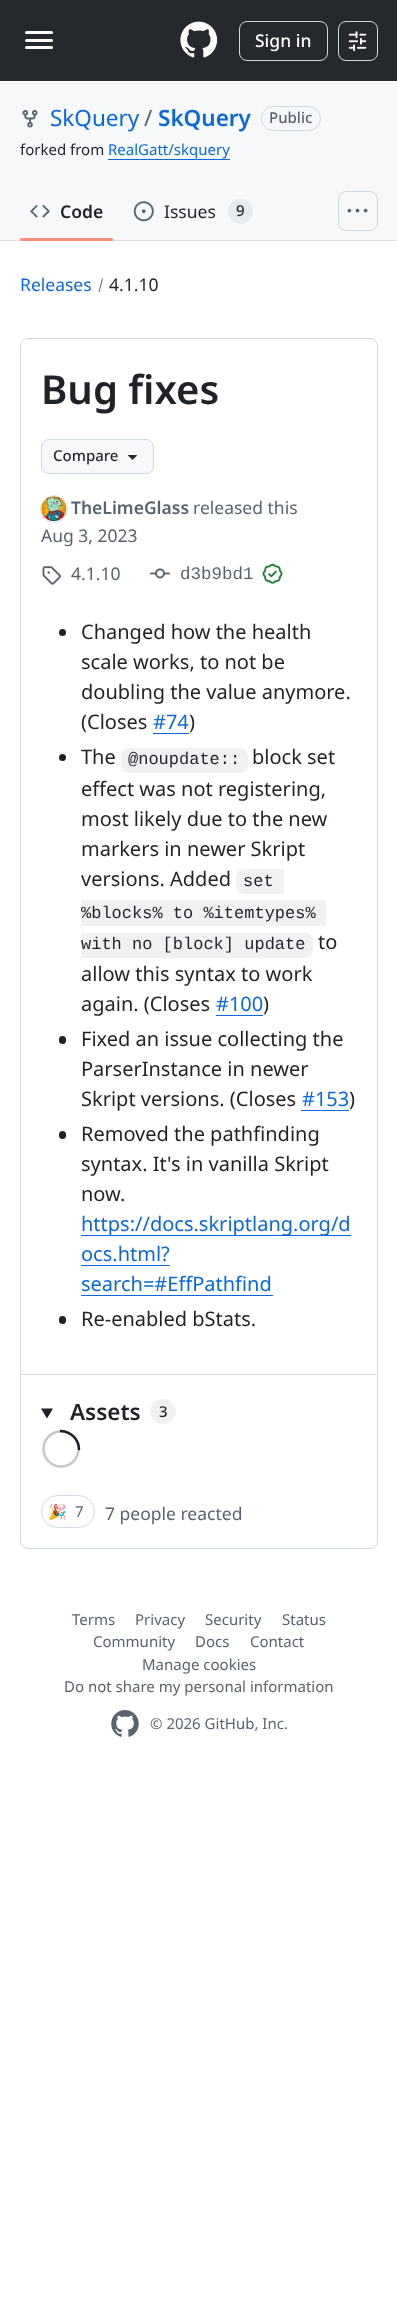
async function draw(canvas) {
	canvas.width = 397;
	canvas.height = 2300;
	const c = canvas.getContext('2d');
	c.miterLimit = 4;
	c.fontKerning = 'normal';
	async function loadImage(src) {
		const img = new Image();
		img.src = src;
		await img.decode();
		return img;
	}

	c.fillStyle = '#fff';
	c.fillRect(0, 0, 397, 2300);
	c.fillStyle = '#25292e';
	c.fillRect(0, 0, 397, 81);
	c.fillStyle = '#fff';
	c.beginPath();
	c.roundRect(25, 31, 28, 3, 1.5);
	c.fill();
	c.beginPath();
	c.roundRect(25, 39, 28, 3, 1.5);
	c.fill();
	c.beginPath();
	c.roundRect(25, 46, 28, 3, 1.5);
	c.fill();
	c.drawImage(await loadImage('img1.png'), 180, 21, 38, 37);
	c.beginPath();
	c.roundRect(239.5, 21.5, 88, 39, 7.5);
	c.strokeStyle = '#d1d9e0';
	c.stroke();
	c.font = '500 17.5px Noto Sans';
	c.fillText('Sign in', 255, 47);
	c.beginPath();
	c.roundRect(338.5, 21.5, 39, 39, 7.5);
	c.stroke();
	c.drawImage(await loadImage('img2.png'), 348, 31, 19, 21);
	c.fillStyle = '#f6f8fa';
	c.fillRect(0, 81, 397, 159);
	c.drawImage(await loadImage('img3.png'), 22, 110, 16, 18);
	c.font = '22.5px Noto Sans';
	c.fillStyle = '#0969da';
	c.fillText('SkQuery', 50, 126);
	c.fillStyle = '#59636e';
	c.fillText('/', 144, 126);
	c.font = '600 22.5px Noto Sans';
	c.fillStyle = '#0969da';
	c.fillText('SkQuery', 158, 126);
	c.beginPath();
	c.roundRect(261.5, 106.5, 59, 24, 12);
	c.stroke();
	c.font = '500 15px Noto Sans';
	c.fillStyle = '#59636e';
	c.fillText('Public', 269, 123);
	c.font = '15px Noto Sans';
	c.fillStyle = '#1f2328';
	c.fillText('forked from', 20, 155);
	c.fillStyle = '#0969da';
	c.fillText('RealGatt/skquery', 108, 155);
	c.fillRect(108, 159, 122, 1);
	c.fillStyle = '#dce2e8';
	c.fillRect(0, 240, 397, 1);
	c.drawImage(await loadImage('img4.png'), 30, 205, 20, 13);
	c.font = '600 17.5px Noto Sans';
	c.fillStyle = '#1f2328';
	c.fillText('Code', 60, 218);
	c.fillStyle = '#fd8c73';
	c.beginPath();
	c.roundRect(20, 238, 93, 3, 1.5);
	c.fill();
	c.drawImage(await loadImage('img5.png'), 133, 201, 21, 21);
	c.font = '17.5px Noto Sans';
	c.fillStyle = '#1f2328';
	c.fillText('Issues', 164, 218);
	c.fillStyle = '#e8ebee';
	c.beginPath();
	c.arc(240.5, 211.5, 12.5, 0, 2 * Math.PI);
	c.fill();
	c.font = '500 15px Noto Sans';
	c.fillStyle = '#1f2328';
	c.fillText('9', 236, 216);
	c.beginPath();
	c.roundRect(338.5, 191.5, 39, 39, 7.5);
	c.stroke();
	c.drawImage(await loadImage('img6.png'), 347, 208, 21, 5);
	c.font = '17.5px Noto Sans';
	c.fillStyle = '#0969da';
	c.fillText('Releases', 20, 291);
	c.fillStyle = '#59636e';
	c.beginPath();
	c.moveTo(102, 278.5);
	c.lineTo(103, 278.5);
	c.lineTo(99.5, 292);
	c.lineTo(98.5, 292);
	c.closePath();
	c.fill();
	c.fillStyle = '#1f2328';
	c.fillText('4.1.10', 109, 291);
	c.beginPath();
	c.roundRect(20.5, 338.5, 357, 1210, 7.5);
	c.stroke();
	c.fillStyle = '#d1d9e0';
	c.fillRect(21, 1374, 355, 1);
	c.font = '600 40px Noto Sans';
	c.fillStyle = '#1f2328';
	c.fillText('Bug fixes', 41, 404);
	c.fillStyle = '#f6f8fa';
	c.beginPath();
	c.roundRect(41.5, 439.5, 112, 34, 7.5);
	c.fill();
	c.stroke();
	c.font = '500 15px Noto Sans';
	c.fillStyle = '#25292e';
	c.fillText('Compare', 53, 461);
	c.drawImage(await loadImage('img7.png'), 128, 455, 9, 5);
	c.beginPath();
	c.arc(54, 509, 13.5, 0, 2 * Math.PI);
	c.strokeStyle = '#dddedf';
	c.stroke();
	c.fillStyle = '#fff';
	c.beginPath();
	c.arc(53.5, 508.5, 12.5, 0, 2 * Math.PI);
	c.fill();
	c.drawImage(await loadImage('img8.png'), 41, 496, 26, 26);
	c.font = '600 17.5px Noto Sans';
	c.fillStyle = '#59636e';
	c.fillText('TheLimeGlass', 71, 514);
	c.font = '17.5px Noto Sans';
	c.fillText('released this', 193, 514);
	c.fillText('Aug 3, 2023', 41, 542);
	c.drawImage(await loadImage('img9.png'), 42, 566, 19, 19);
	c.fillText('4.1.10', 71, 580);
	c.drawImage(await loadImage('img10.png'), 150, 568, 20, 11);
	c.font = '17.5px Liberation Mono';
	c.fillText('d3b9bd1', 180, 579);
	c.drawImage(await loadImage('img11.png'), 262, 563, 21, 21);
	c.fillStyle = '#1f2328';
	c.beginPath();
	c.arc(62.5, 632.5, 3.5, 0, 2 * Math.PI);
	c.fill();
	c.font = '20px Noto Sans';
	for (const [text, x, y] of [
		['Changed how the health', 81, 639],
		['scale works, to not be', 81, 669],
		['doubling the value anymore.', 81, 699],
		['(Closes', 81, 729],
	]) {
		c.fillText(text, x, y);
	}
	c.fillStyle = '#0969da';
	c.fillText('#74', 153, 729);
	c.fillRect(153, 733, 36, 1);
	c.fillStyle = '#1f2328';
	c.fillText(')', 189, 729);
	c.beginPath();
	c.arc(62.5, 757.5, 3.5, 0, 2 * Math.PI);
	c.fill();
	c.fillText('The', 81, 764);
	c.fillStyle = '#f0f1f3';
	c.beginPath();
	c.roundRect(121, 748, 127, 25, 8);
	c.fill();
	c.font = '17px Liberation Mono';
	c.fillStyle = '#1f2328';
	c.fillText('@noupdate::', 128, 764);
	c.font = '20px Noto Sans';
	for (const [text, x, y] of [
		['block set', 252, 764],
		['effect was not registering,', 81, 796],
		['most likely due to the new', 81, 826],
		['markers in newer Skript', 81, 856],
		['versions. Added', 81, 886],
	]) {
		c.fillText(text, x, y);
	}
	c.fillStyle = '#f0f1f3';
	c.beginPath();
	c.roundRect(236, 869, 48, 25, [8, 0, 0, 8]);
	c.fill();
	c.font = '17px Liberation Mono';
	c.fillStyle = '#1f2328';
	c.fillText('set', 243, 886);
	c.fillStyle = '#f0f1f3';
	c.fillRect(81, 900, 245, 26);
	c.fillStyle = '#1f2328';
	c.fillText('%blocks% to %itemtypes%', 81, 918);
	c.fillStyle = '#f0f1f3';
	c.beginPath();
	c.roundRect(81, 933, 232, 25, [0, 8, 8, 0]);
	c.fill();
	c.fillStyle = '#1f2328';
	c.fillText('with no [block] update', 81, 949);
	c.font = '20px Noto Sans';
	for (const [text, x, y] of [
		['to', 318, 949],
		['allow this syntax to work', 81, 981],
		['again. (Closes', 81, 1011],
	]) {
		c.fillText(text, x, y);
	}
	c.fillStyle = '#0969da';
	c.fillText('#100', 216, 1011);
	c.fillRect(216, 1015, 47, 1);
	c.fillStyle = '#1f2328';
	c.fillText(')', 263, 1011);
	c.beginPath();
	c.roundRect(59, 1036, 7, 8, 3.5);
	c.fill();
	for (const [text, x, y] of [
		['Fixed an issue collecting the', 81, 1046],
		['ParserInstance in newer', 81, 1076],
		['Skript versions. (Closes', 81, 1106],
	]) {
		c.fillText(text, x, y);
	}
	c.fillStyle = '#0969da';
	c.fillText('#153', 302, 1106);
	c.fillRect(301, 1110, 48, 1);
	c.fillStyle = '#1f2328';
	c.fillText(')', 349, 1106);
	c.beginPath();
	c.roundRect(59, 1131, 7, 8, 3.5);
	c.fill();
	for (const [text, x, y] of [
		['Removed the pathfinding', 81, 1141],
		['syntax. It\'s in vanilla Skript', 81, 1171],
		['now.', 81, 1201],
	]) {
		c.fillText(text, x, y);
	}
	c.fillStyle = '#0969da';
	c.fillRect(81, 1235, 270, 1);
	c.fillText('https://docs.skriptlang.org/d', 81, 1231);
	c.fillText('ocs.html?', 81, 1261);
	c.fillRect(81, 1265, 89, 1);
	c.fillText('search=#EffPathfind', 81, 1291);
	c.fillRect(81, 1295, 192, 1);
	c.fillStyle = '#1f2328';
	c.beginPath();
	c.roundRect(59, 1316, 7, 8, 3.5);
	c.fill();
	c.fillText('Re-enabled bStats.', 81, 1326);
	c.beginPath();
	c.moveTo(41, 1408.5);
	c.lineTo(53, 1408.5);
	c.lineTo(47, 1418.5);
	c.closePath();
	c.fill();
	c.font = '600 22.5px Noto Sans';
	c.fillText('Assets', 70, 1420);
	c.fillStyle = '#f0f1f3';
	c.beginPath();
	c.roundRect(150, 1399, 26, 25, 12.5);
	c.fill();
	c.font = '500 15px Noto Sans';
	c.fillStyle = '#1f2328';
	c.fillText('3', 159, 1417);
	c.beginPath();
	c.arc(61, 1449, 17.5, 0, 2 * Math.PI);
	c.strokeStyle = '#c7c8c9';
	c.lineWidth = 2.5;
	c.stroke();
	c.beginPath();
	c.moveTo(79, 1449);
	c.bezierCurveTo(78.5, 1439, 71, 1431.5, 61, 1431);
	c.strokeStyle = '#1f2328';
	c.lineCap = 'round';
	c.stroke();
	c.beginPath();
	c.roundRect(41.5, 1495.5, 53, 32, 16);
	c.strokeStyle = '#d1d9e0';
	c.lineWidth = 1;
	c.stroke();
	c.font = '15px Noto Color Emoji';
	c.fillStyle = '#59636e';
	c.fillText('🎉', 48, 1517);
	c.font = '15px Noto Sans';
	c.fillText('7', 75, 1517);
	c.font = '17.5px Noto Sans';
	c.fillText('7 people reacted', 105, 1520);
	c.font = '15px Noto Sans';
	for (const [text, x, y] of [
		['Terms', 72, 1625],
		['Privacy', 135, 1625],
		['Security', 205, 1625],
		['Status', 282, 1625],
		['Community', 93, 1647],
		['Docs', 195, 1647],
		['Contact', 250, 1647],
		['Manage cookies', 142, 1670],
		['Do not share my personal information', 64, 1692],
	]) {
		c.fillText(text, x, y);
	}
	c.drawImage(await loadImage('img12.png'), 111, 1710, 28, 27);
	c.fillText('© 2026 GitHub, Inc.', 150, 1729);
}

draw(document.querySelector('canvas'));
